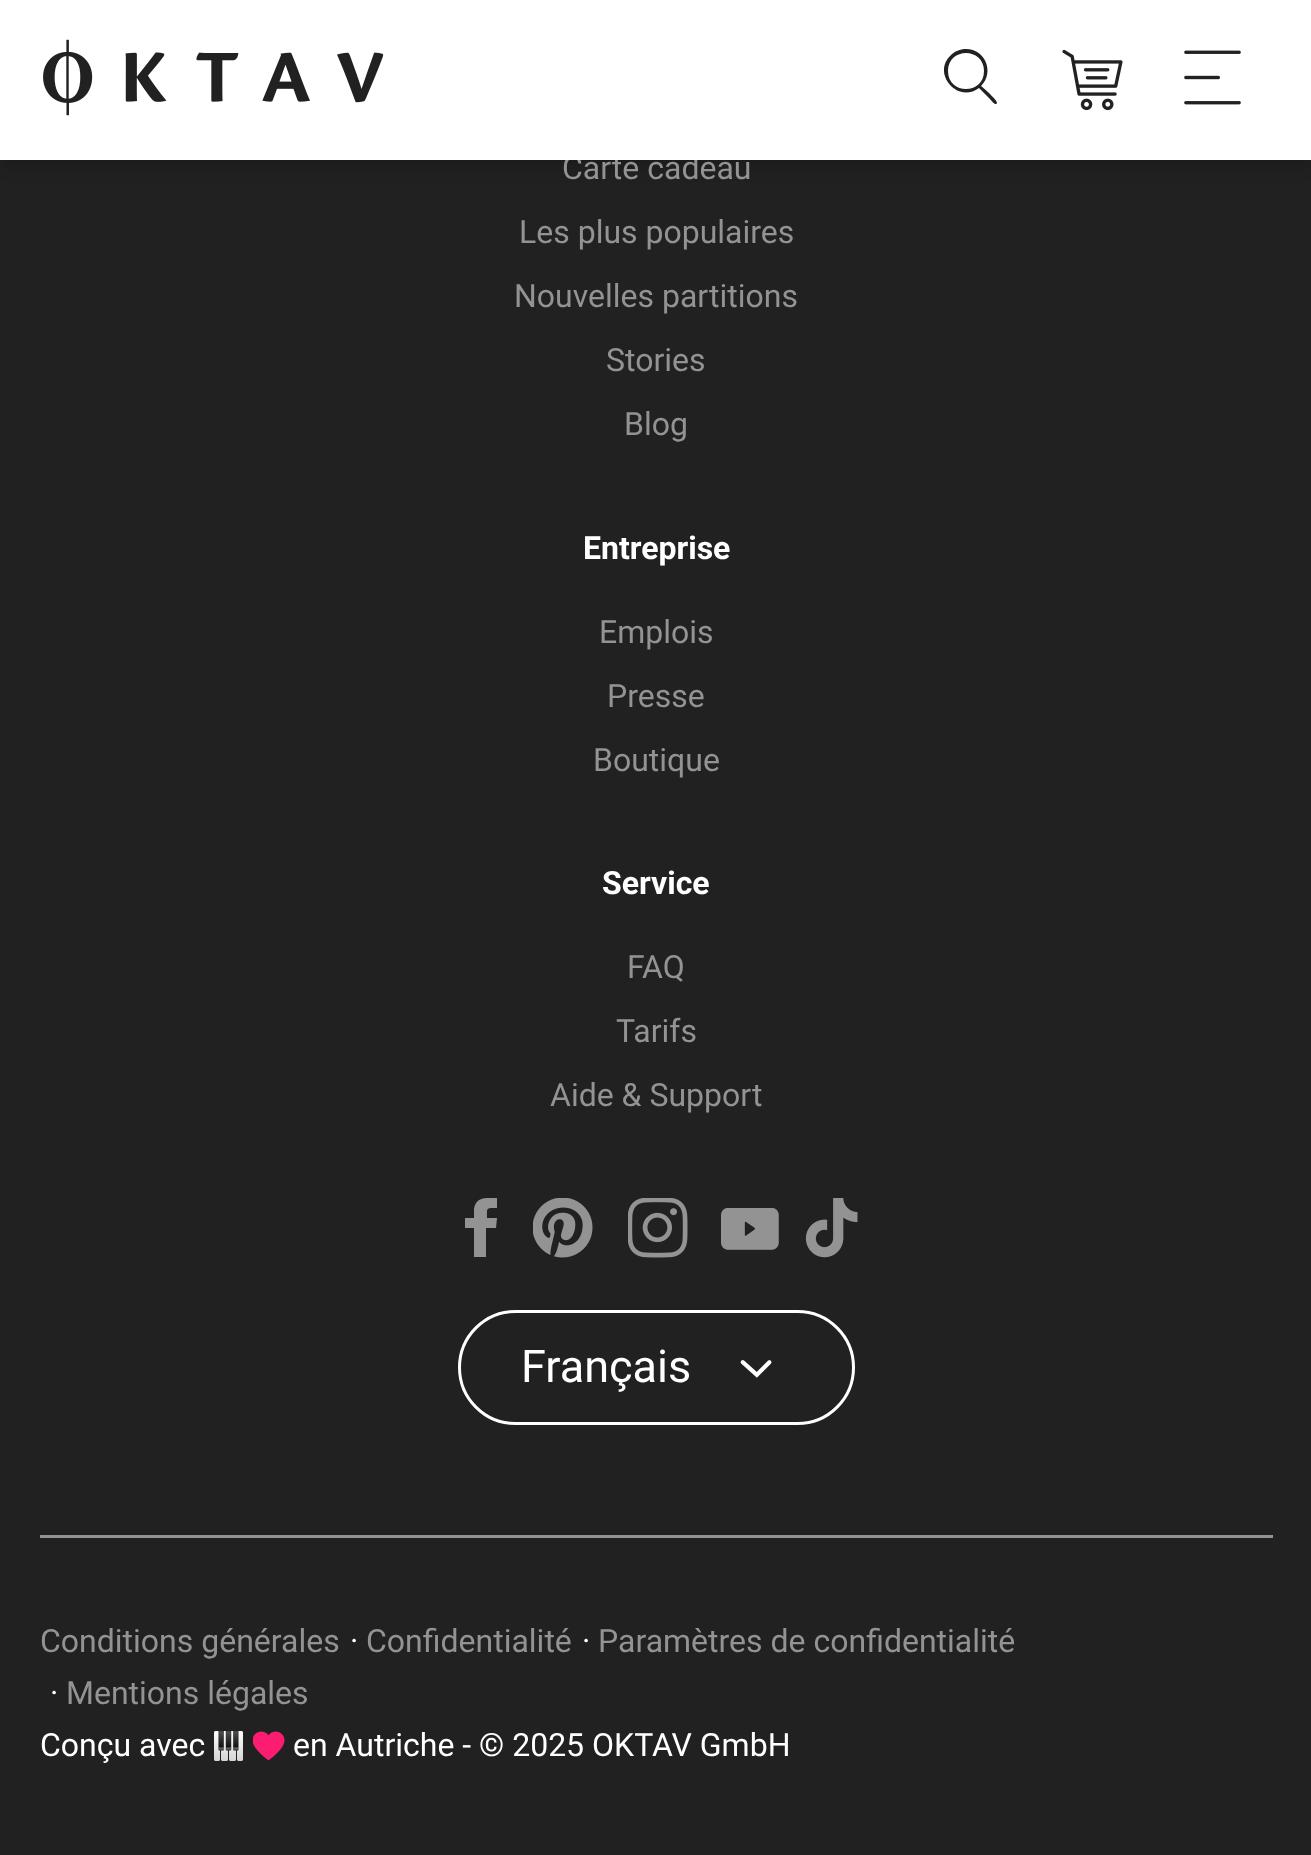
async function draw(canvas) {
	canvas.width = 1311;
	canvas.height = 1855;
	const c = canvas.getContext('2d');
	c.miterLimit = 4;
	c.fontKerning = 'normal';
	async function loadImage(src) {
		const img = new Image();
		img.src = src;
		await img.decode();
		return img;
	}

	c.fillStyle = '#212121';
	c.fillRect(0, 0, 1311, 1855);
	c.fillStyle = '#0000001a';
	c.filter = 'blur(5px)';
	c.beginPath();
	c.rect(5, 10, 1303, 150);
	c.fill();
	c.filter = 'none';
	c.filter = 'blur(7.5px)';
	c.beginPath();
	c.rect(3, 13, 1307, 155);
	c.fill();
	c.filter = 'none';
	c.font = '32px Roboto';
	c.fillStyle = '#939393';
	c.fillText('Carte cadeau', 562, 179);
	c.fillStyle = '#fff';
	c.fillRect(0, 0, 1311, 160);
	c.drawImage(await loadImage('img1.png'), 43, 39, 341, 77);
	c.fillStyle = '#212121';
	c.beginPath();
	c.moveTo(966, 49);
	c.bezierCurveTo(960, 49, 955, 51, 950, 56);
	c.bezierCurveTo(932, 74, 958, 104, 979, 88);
	c.lineTo(989, 98);
	c.bezierCurveTo(990, 99, 996, 107, 997, 103);
	c.bezierCurveTo(998, 101, 984, 88, 981, 86);
	c.bezierCurveTo(995, 72, 985, 49, 966, 49);
	c.closePath();
	c.moveTo(948, 71);
	c.bezierCurveTo(948, 47, 984, 47, 984, 71);
	c.bezierCurveTo(984, 95, 948, 95, 948, 71);
	c.closePath();
	c.fill('evenodd');
	c.drawImage(await loadImage('img2.png'), 1062, 49, 61, 62);
	c.drawImage(await loadImage('img3.png'), 1184, 50, 57, 55);
	c.fillStyle = '#939393';
	for (const [text, x, y] of [
		['Les plus populaires', 519, 243],
		['Nouvelles partitions', 514, 307],
		['Stories', 606, 371],
		['Blog', 624, 435],
	]) {
		c.fillText(text, x, y);
	}
	c.font = 'bold 32px Roboto';
	c.fillStyle = '#fff';
	c.fillText('Entreprise', 583, 559);
	c.font = '32px Roboto';
	c.fillStyle = '#939393';
	for (const [text, x, y] of [
		['Emplois', 599, 643],
		['Presse', 607, 707],
		['Boutique', 593, 771],
	]) {
		c.fillText(text, x, y);
	}
	c.font = 'bold 32px Roboto';
	c.fillStyle = '#fff';
	c.fillText('Service', 602, 894);
	c.font = '32px Roboto';
	c.fillStyle = '#939393';
	for (const [text, x, y] of [
		['FAQ', 627, 978],
		['Tarifs', 616, 1042],
		['Aide & Support', 550, 1106],
	]) {
		c.fillText(text, x, y);
	}
	c.save();
	c.beginPath();
	c.rect(465, 1198, 33, 60);
	c.clip();
	c.beginPath();
	c.moveTo(487, 1218);
	c.bezierCurveTo(487, 1207, 486, 1208, 497, 1208);
	c.lineTo(497, 1198);
	c.bezierCurveTo(487, 1198, 476, 1196, 474, 1209);
	c.lineTo(474, 1218);
	c.lineTo(465, 1218);
	c.lineTo(465, 1228);
	c.lineTo(474, 1228);
	c.lineTo(474, 1257);
	c.lineTo(486, 1257);
	c.lineTo(486, 1228);
	c.lineTo(496, 1228);
	c.lineTo(497, 1218);
	c.closePath();
	c.fill();
	c.restore();
	c.drawImage(await loadImage('img4.png'), 533, 1198, 60, 60);
	c.drawImage(await loadImage('img5.png'), 628, 1198, 60, 60);
	c.drawImage(await loadImage('img6.png'), 721, 1208, 58, 42);
	c.drawImage(await loadImage('img7.png'), 805, 1198, 53, 60);
	c.beginPath();
	c.roundRect(459.5, 1311.5, 394, 112, 56);
	c.strokeStyle = '#fff';
	c.lineWidth = 3;
	c.stroke();
	c.font = '45px Roboto';
	c.fillStyle = '#fff';
	c.fillText('Français', 521, 1382);
	c.drawImage(await loadImage('img8.png'), 740, 1360, 32, 18);
	c.fillStyle = '#939393';
	c.fillRect(40, 1535, 1233, 3);
	c.font = '32px Roboto';
	c.fillText('Conditions générales', 40, 1652);
	c.fillStyle = '#fff';
	c.fillText('·', 350, 1652);
	c.fillStyle = '#939393';
	c.fillText('Confidentialité', 366, 1652);
	c.fillStyle = '#fff';
	c.fillText('·', 582, 1652);
	c.fillStyle = '#939393';
	c.fillText('Paramètres de confidentialité', 598, 1652);
	c.fillStyle = '#fff';
	c.fillText('·', 50, 1704);
	c.fillStyle = '#939393';
	c.fillText('Mentions légales', 66, 1704);
	c.fillStyle = '#fff';
	c.fillText('Conçu avec', 40, 1756);
	c.drawImage(await loadImage('img9.png'), 214, 1731, 29, 30);
	c.drawImage(await loadImage('img10.png'), 253, 1731, 32, 30);
	c.fillText('en Autriche - © 2025 OKTAV GmbH', 293, 1756);
}

draw(document.querySelector('canvas'));
